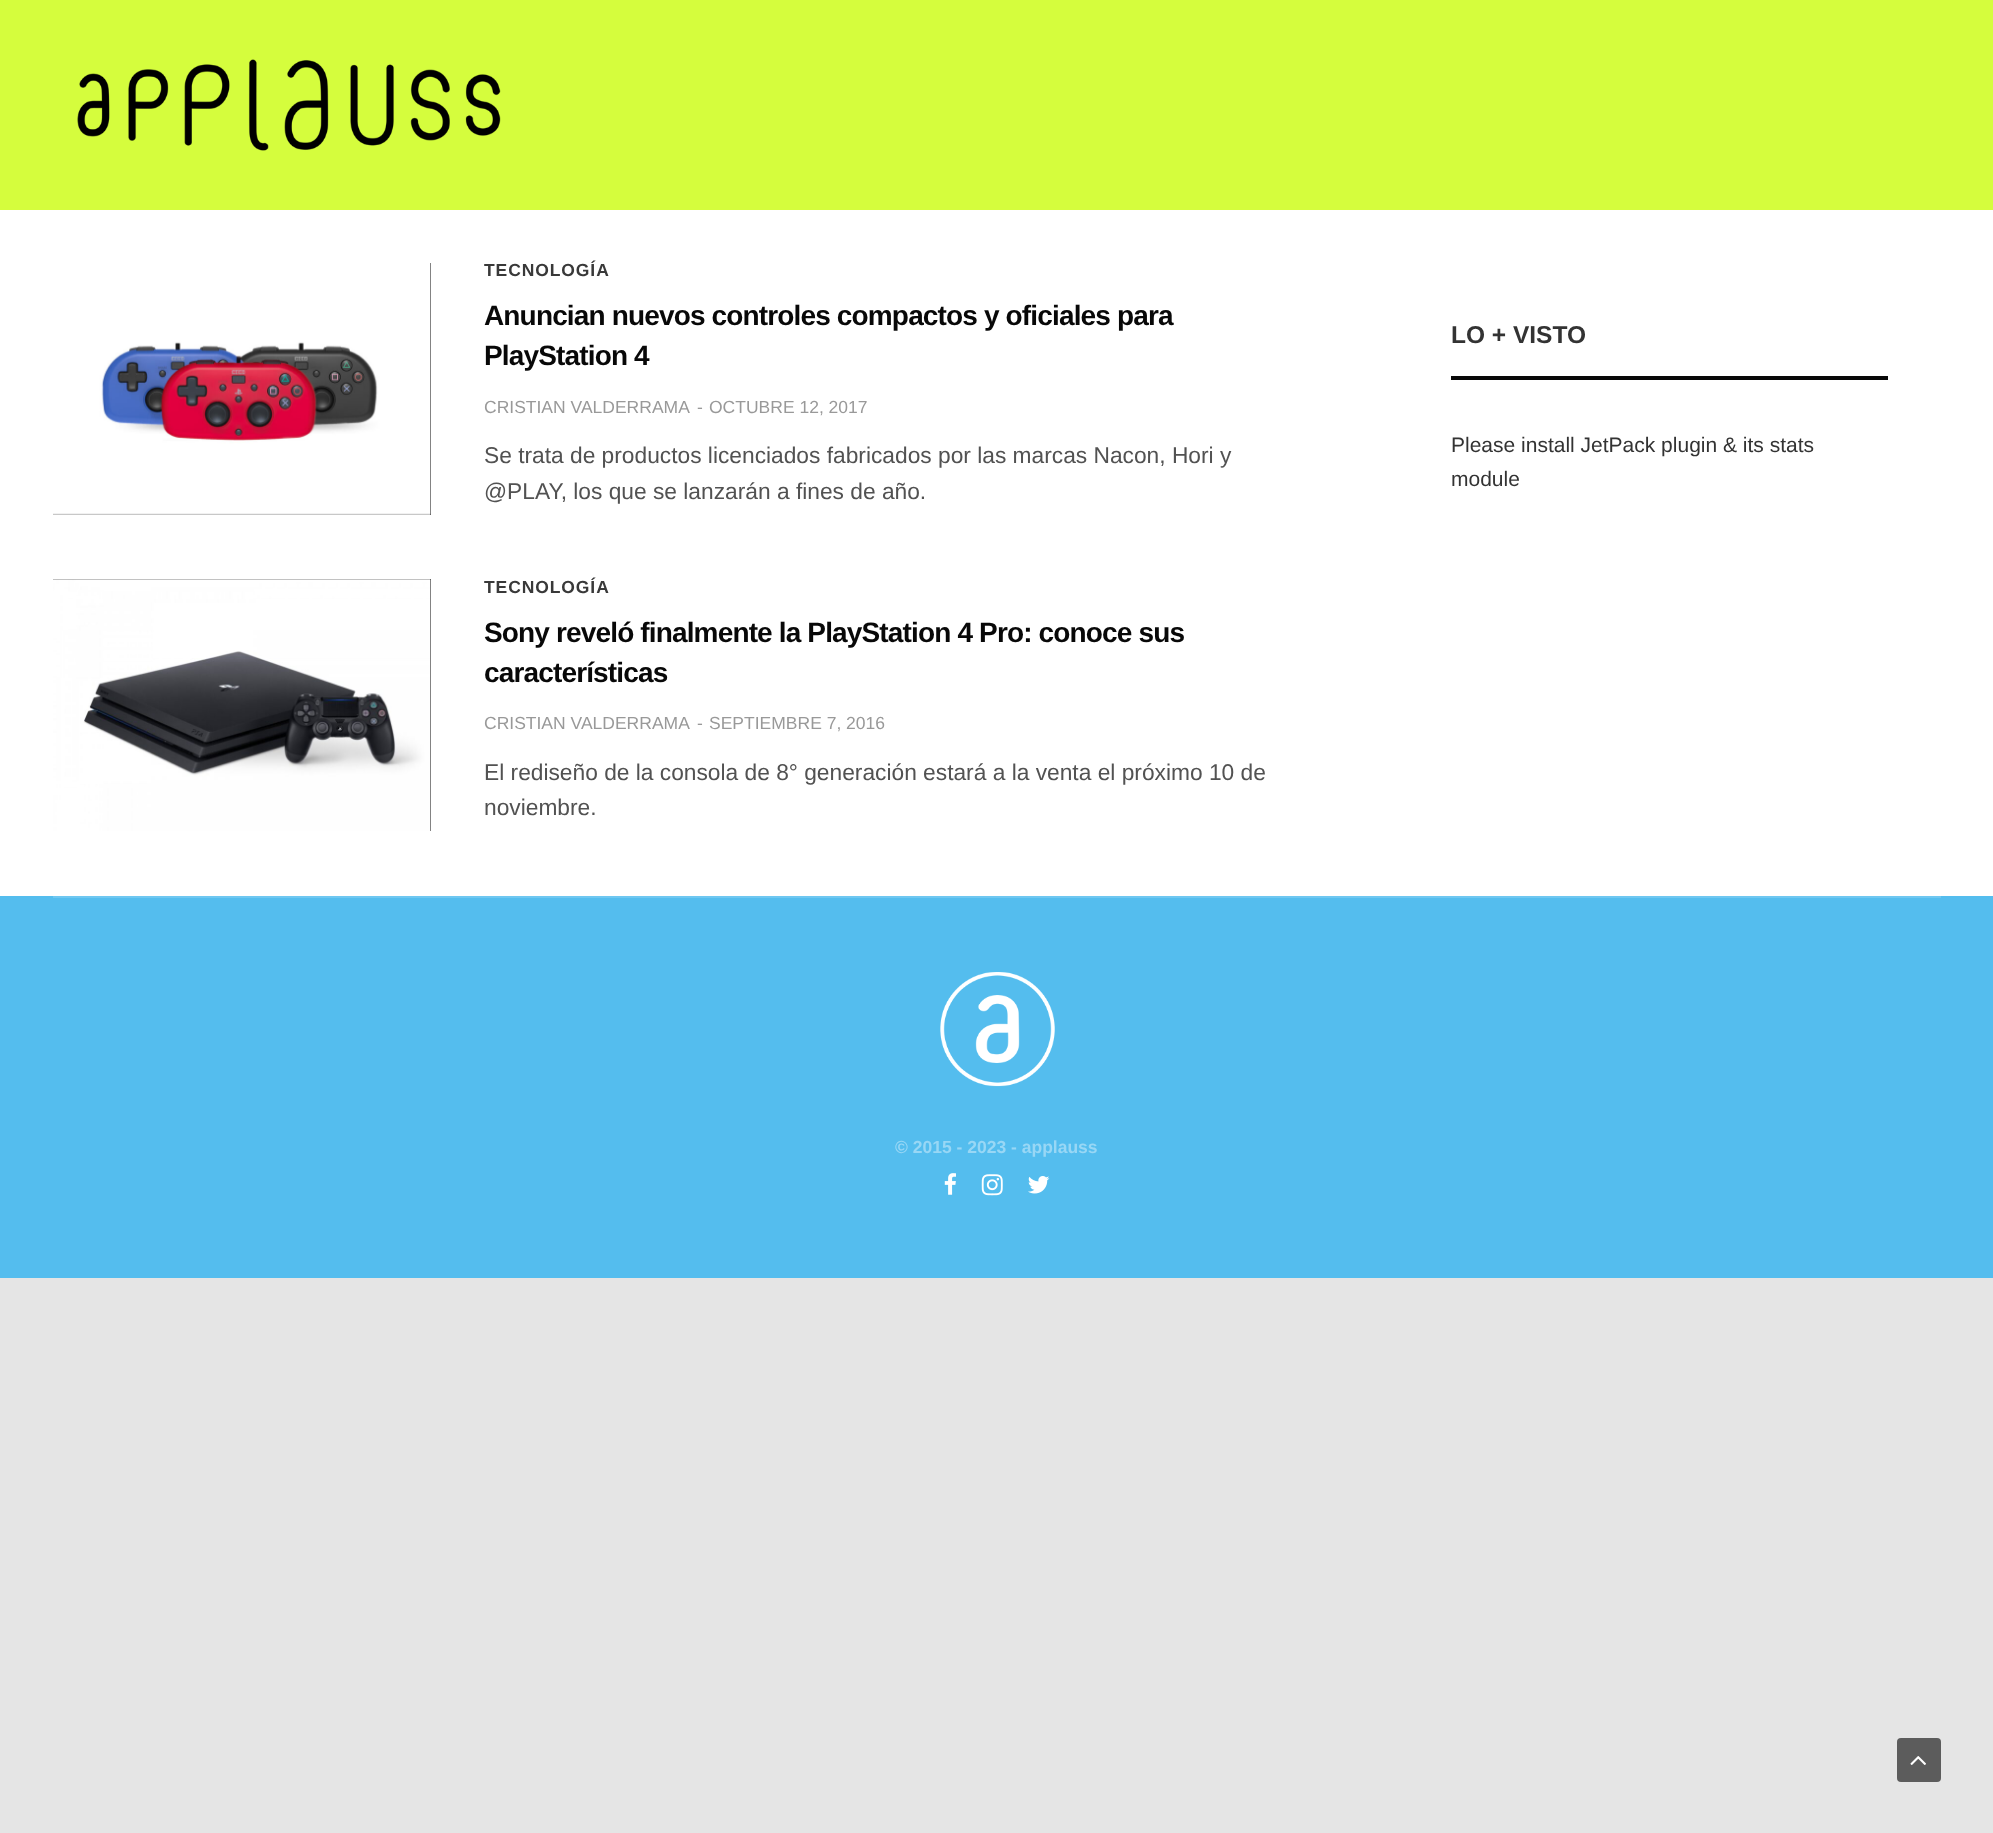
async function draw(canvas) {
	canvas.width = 1993;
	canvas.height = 1833;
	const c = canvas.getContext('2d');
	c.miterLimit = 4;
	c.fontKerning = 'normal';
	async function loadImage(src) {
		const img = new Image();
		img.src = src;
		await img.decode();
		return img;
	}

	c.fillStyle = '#e5e5e5';
	c.fillRect(0, 0, 1993, 1833);
	c.fillStyle = '#d5fd3d';
	c.fillRect(0, 0, 1993, 210);
	c.drawImage(await loadImage('img1.png'), 77, 59, 424, 92);
	c.fillStyle = '#fff';
	c.fillRect(0, 210, 1993, 686);
	c.fillStyle = '#080808';
	c.fillRect(53, 263, 378, 252);
	c.drawImage(await loadImage('img2.png'), 53, 263, 378, 252);
	c.letterSpacing = '0.9px';
	c.font = 'bold 17.5px Liberation Sans';
	c.fillStyle = '#393939';
	c.fillText('TECNOLOGÍA', 484, 276);
	c.letterSpacing = '-0.85px';
	c.font = 'bold 28px Liberation Sans';
	c.fillStyle = '#080808';
	c.fillText('Anuncian nuevos controles compactos y oficiales para', 484, 325);
	c.fillText('PlayStation 4', 484, 365);
	c.letterSpacing = '0px';
	c.font = '17.5px Liberation Sans';
	c.fillStyle = '#999';
	for (const [text, x, y] of [
		['CRISTIAN VALDERRAMA', 484, 413],
		['-', 697, 413],
		['OCTUBRE 12, 2017', 709, 413],
	]) {
		c.fillText(text, x, y);
	}
	c.font = '22.75px Liberation Sans';
	c.fillStyle = '#525252';
	c.fillText('Se trata de productos licenciados fabricados por las marcas Nacon, Hori y', 484, 463);
	c.fillText('@PLAY, los que se lanzarán a fines de año.', 484, 499);
	c.fillStyle = '#080808';
	c.fillRect(53, 579, 378, 252);
	c.drawImage(await loadImage('img3.png'), 53, 579, 378, 252);
	c.letterSpacing = '0.9px';
	c.font = 'bold 17.5px Liberation Sans';
	c.fillStyle = '#393939';
	c.fillText('TECNOLOGÍA', 484, 593);
	c.letterSpacing = '-0.85px';
	c.font = 'bold 28px Liberation Sans';
	c.fillStyle = '#080808';
	c.fillText('Sony reveló finalmente la PlayStation 4 Pro: conoce sus', 484, 642);
	c.fillText('características', 484, 682);
	c.letterSpacing = '0px';
	c.font = '17.5px Liberation Sans';
	c.fillStyle = '#999';
	for (const [text, x, y] of [
		['CRISTIAN VALDERRAMA', 484, 729],
		['-', 697, 729],
		['SEPTIEMBRE 7, 2016', 709, 729],
	]) {
		c.fillText(text, x, y);
	}
	c.font = '22.75px Liberation Sans';
	c.fillStyle = '#525252';
	c.fillText('El rediseño de la consola de 8° generación estará a la venta el próximo 10 de', 484, 780);
	c.fillText('noviembre.', 484, 815);
	c.fillStyle = '#080808';
	c.fillRect(1451, 376, 437, 4);
	c.font = 'bold 24.5px Liberation Sans';
	c.fillStyle = '#333';
	c.fillText('LO + VISTO', 1451, 343);
	c.font = '21px Liberation Sans';
	c.fillText('Please install JetPack plugin & its stats', 1451, 452);
	c.fillText('module', 1451, 486);
	c.fillStyle = '#54bdee';
	c.fillRect(0, 896, 1993, 382);
	c.fillStyle = '#6ec7f1';
	c.fillRect(53, 896, 1888, 2);
	c.drawImage(await loadImage('img4.png'), 940, 972, 115, 115);
	c.font = 'bold 17.5px Liberation Sans';
	c.fillStyle = '#98d7f5';
	c.fillText('© 2015 - 2023 - applauss', 895, 1153);
	c.drawImage(await loadImage('img5.png'), 944, 1173, 12, 22);
	c.drawImage(await loadImage('img6.png'), 981, 1174, 22, 22);
	c.drawImage(await loadImage('img7.png'), 1028, 1176, 22, 18);
	c.fillStyle = '#5c5c5c';
	c.beginPath();
	c.roundRect(1897, 1738, 44, 44, 4);
	c.fill();
	c.drawImage(await loadImage('img8.png'), 1910, 1756, 16, 9);
}

draw(document.querySelector('canvas'));
